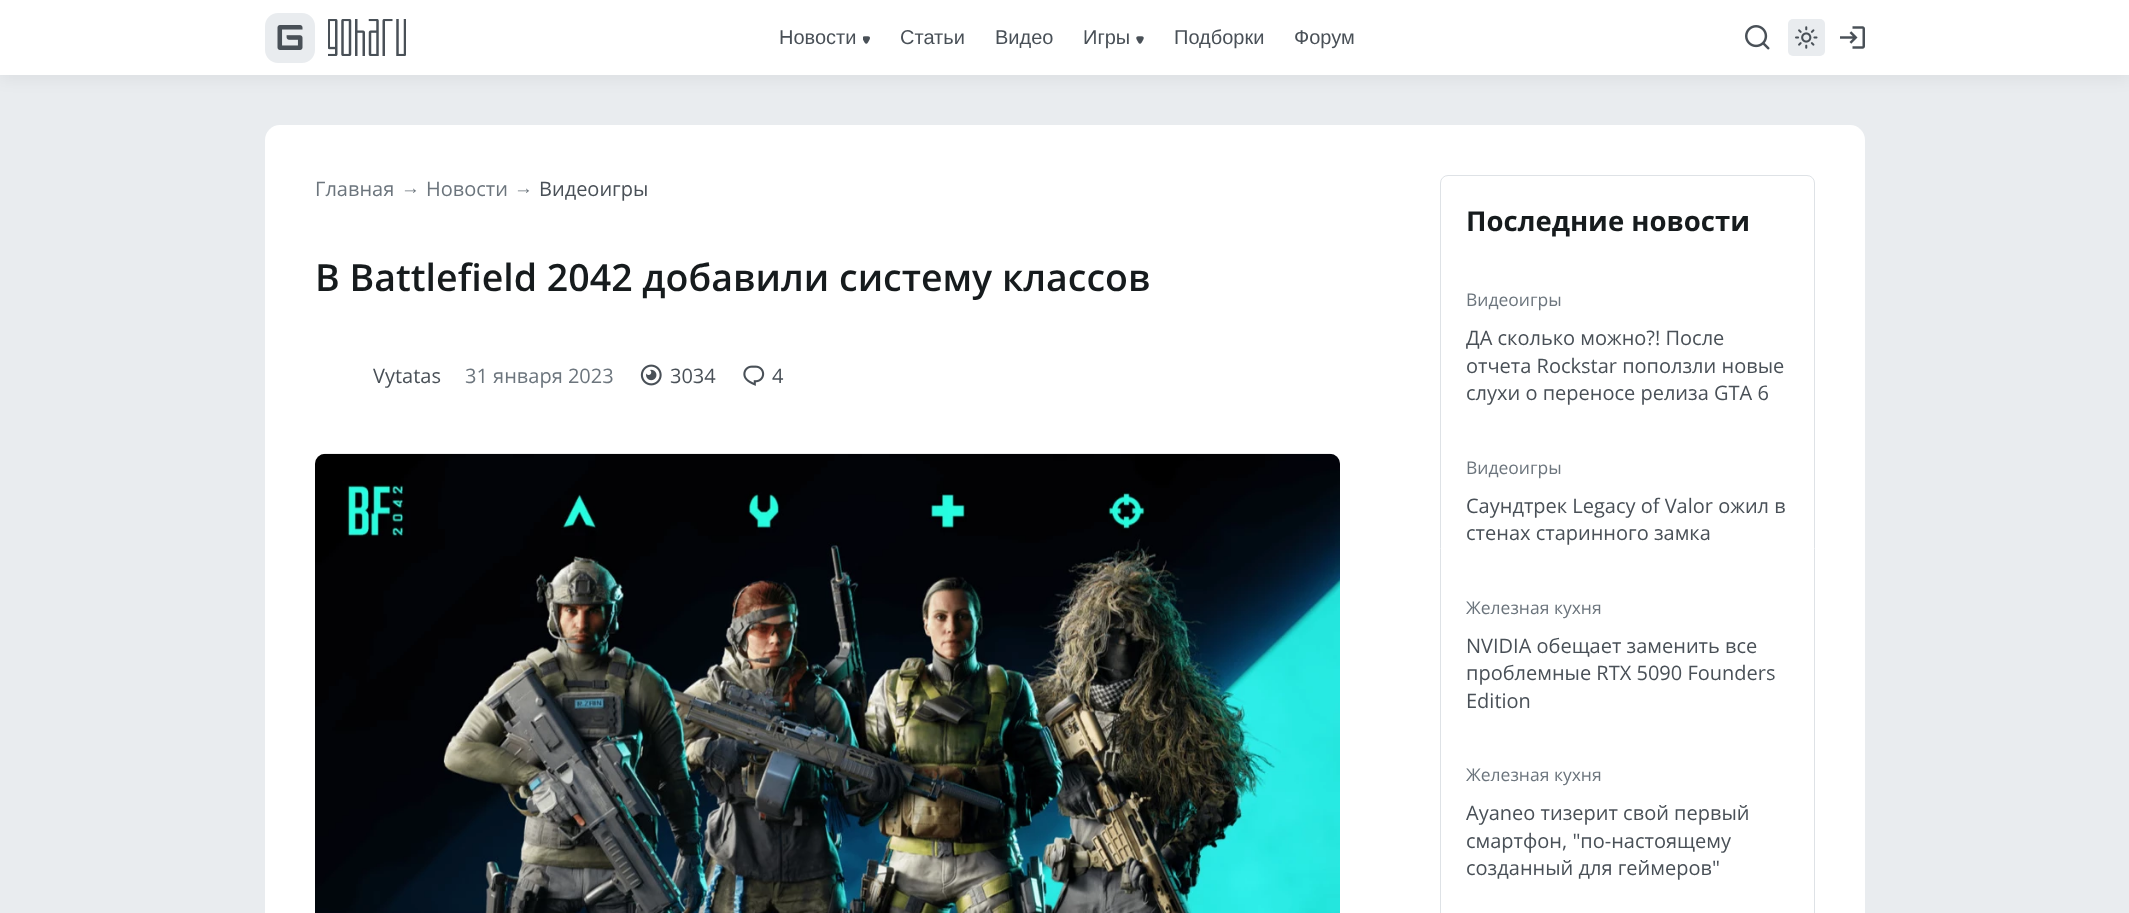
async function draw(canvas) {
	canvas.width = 2129;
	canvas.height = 913;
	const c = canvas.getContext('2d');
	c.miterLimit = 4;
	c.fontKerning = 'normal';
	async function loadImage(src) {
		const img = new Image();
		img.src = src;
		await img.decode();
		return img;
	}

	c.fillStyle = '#e9ecef';
	c.fillRect(0, 0, 2129, 913);
	c.fillStyle = '#0000000d';
	c.filter = 'blur(7.5px)';
	c.beginPath();
	c.rect(0, 5, 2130, 75);
	c.fill();
	c.filter = 'none';
	c.fillStyle = '#fff';
	c.fillRect(0, 0, 2129, 75);
	c.drawImage(await loadImage('img1.png'), 265, 13, 50, 50);
	c.drawImage(await loadImage('img2.png'), 328, 19, 78, 37);
	c.font = '20px Liberation Sans';
	c.fillStyle = '#495057';
	c.fillText('Новости', 779, 44);
	c.drawImage(await loadImage('img3.png'), 863, 36, 7, 8);
	for (const [text, x, y] of [
		['Статьи', 900, 44],
		['Видео', 995, 44],
		['Игры', 1083, 44],
	]) {
		c.fillText(text, x, y);
	}
	c.drawImage(await loadImage('img4.png'), 1136, 36, 8, 8);
	c.fillText('Подборки', 1174, 44);
	c.fillText('Форум', 1294, 44);
	c.drawImage(await loadImage('img5.png'), 1745, 25, 25, 25);
	c.fillStyle = '#e9ecef';
	c.beginPath();
	c.roundRect(1788, 19, 37, 37, 5);
	c.fill();
	c.drawImage(await loadImage('img6.png'), 1795, 26, 23, 23);
	c.drawImage(await loadImage('img7.png'), 1840, 26, 25, 23);
	c.fillStyle = '#fff';
	c.beginPath();
	c.roundRect(265, 125, 1600, 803, 15);
	c.fill();
	c.font = '20px Open Sans';
	c.fillStyle = '#6c757d';
	c.fillText('Главная', 315, 196);
	c.font = '19px Liberation Sans';
	c.fillText('→', 401, 194);
	c.font = '20px Open Sans';
	c.fillText('Новости', 426, 196);
	c.font = '19px Liberation Sans';
	c.fillText('→', 514, 194);
	c.font = '20px Open Sans';
	c.fillStyle = '#495057';
	c.fillText('Видеоигры', 539, 196);
	c.font = '600 37.5px Open Sans';
	c.fillStyle = '#161b1d';
	c.fillText('В Battlefield 2042 добавили систему классов', 315, 291);
	c.font = '20px Open Sans';
	c.fillStyle = '#495057';
	c.fillText('Vytatas', 373, 383);
	c.fillStyle = '#6c757d';
	c.fillText('31 января 2023', 465, 383);
	c.drawImage(await loadImage('img8.png'), 640, 364, 22, 22);
	c.fillStyle = '#495057';
	c.fillText('3034', 670, 383);
	c.drawImage(await loadImage('img9.png'), 743, 365, 22, 21);
	c.fillText('4', 772, 383);
	c.drawImage(await loadImage('img10.png'), 315, 453, 1025, 460);
	c.beginPath();
	c.roundRect(1440.5, 175.5, 374, 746, 7.5);
	c.strokeStyle = '#dee2e6';
	c.stroke();
	c.font = 'bold 27.5px Open Sans';
	c.fillStyle = '#161b1d';
	c.fillText('Последние новости', 1466, 231);
	c.font = '17.5px Open Sans';
	c.fillStyle = '#6c757d';
	c.fillText('Видеоигры', 1466, 306);
	c.font = '20px Open Sans';
	c.fillStyle = '#495057';
	for (const [text, x, y] of [
		['ДА сколько можно?! После', 1466, 345],
		['отчета Rockstar поползли новые', 1466, 373],
		['слухи о переносе релиза GTA 6', 1466, 400],
	]) {
		c.fillText(text, x, y);
	}
	c.font = '17.5px Open Sans';
	c.fillStyle = '#6c757d';
	c.fillText('Видеоигры', 1466, 474);
	c.font = '20px Open Sans';
	c.fillStyle = '#495057';
	c.fillText('Саундтрек Legacy of Valor ожил в', 1466, 513);
	c.fillText('стенах старинного замка', 1466, 540);
	c.font = '17.5px Open Sans';
	c.fillStyle = '#6c757d';
	c.fillText('Железная кухня', 1466, 614);
	c.font = '20px Open Sans';
	c.fillStyle = '#495057';
	for (const [text, x, y] of [
		['NVIDIA обещает заменить все', 1466, 653],
		['проблемные RTX 5090 Founders', 1466, 680],
		['Edition', 1466, 708],
	]) {
		c.fillText(text, x, y);
	}
	c.font = '17.5px Open Sans';
	c.fillStyle = '#6c757d';
	c.fillText('Железная кухня', 1466, 781);
	c.font = '20px Open Sans';
	c.fillStyle = '#495057';
	for (const [text, x, y] of [
		['Ayaneo тизерит свой первый', 1466, 820],
		['смартфон, "по-настоящему', 1466, 848],
		['созданный для геймеров"', 1466, 875],
	]) {
		c.fillText(text, x, y);
	}
}

draw(document.querySelector('canvas'));
